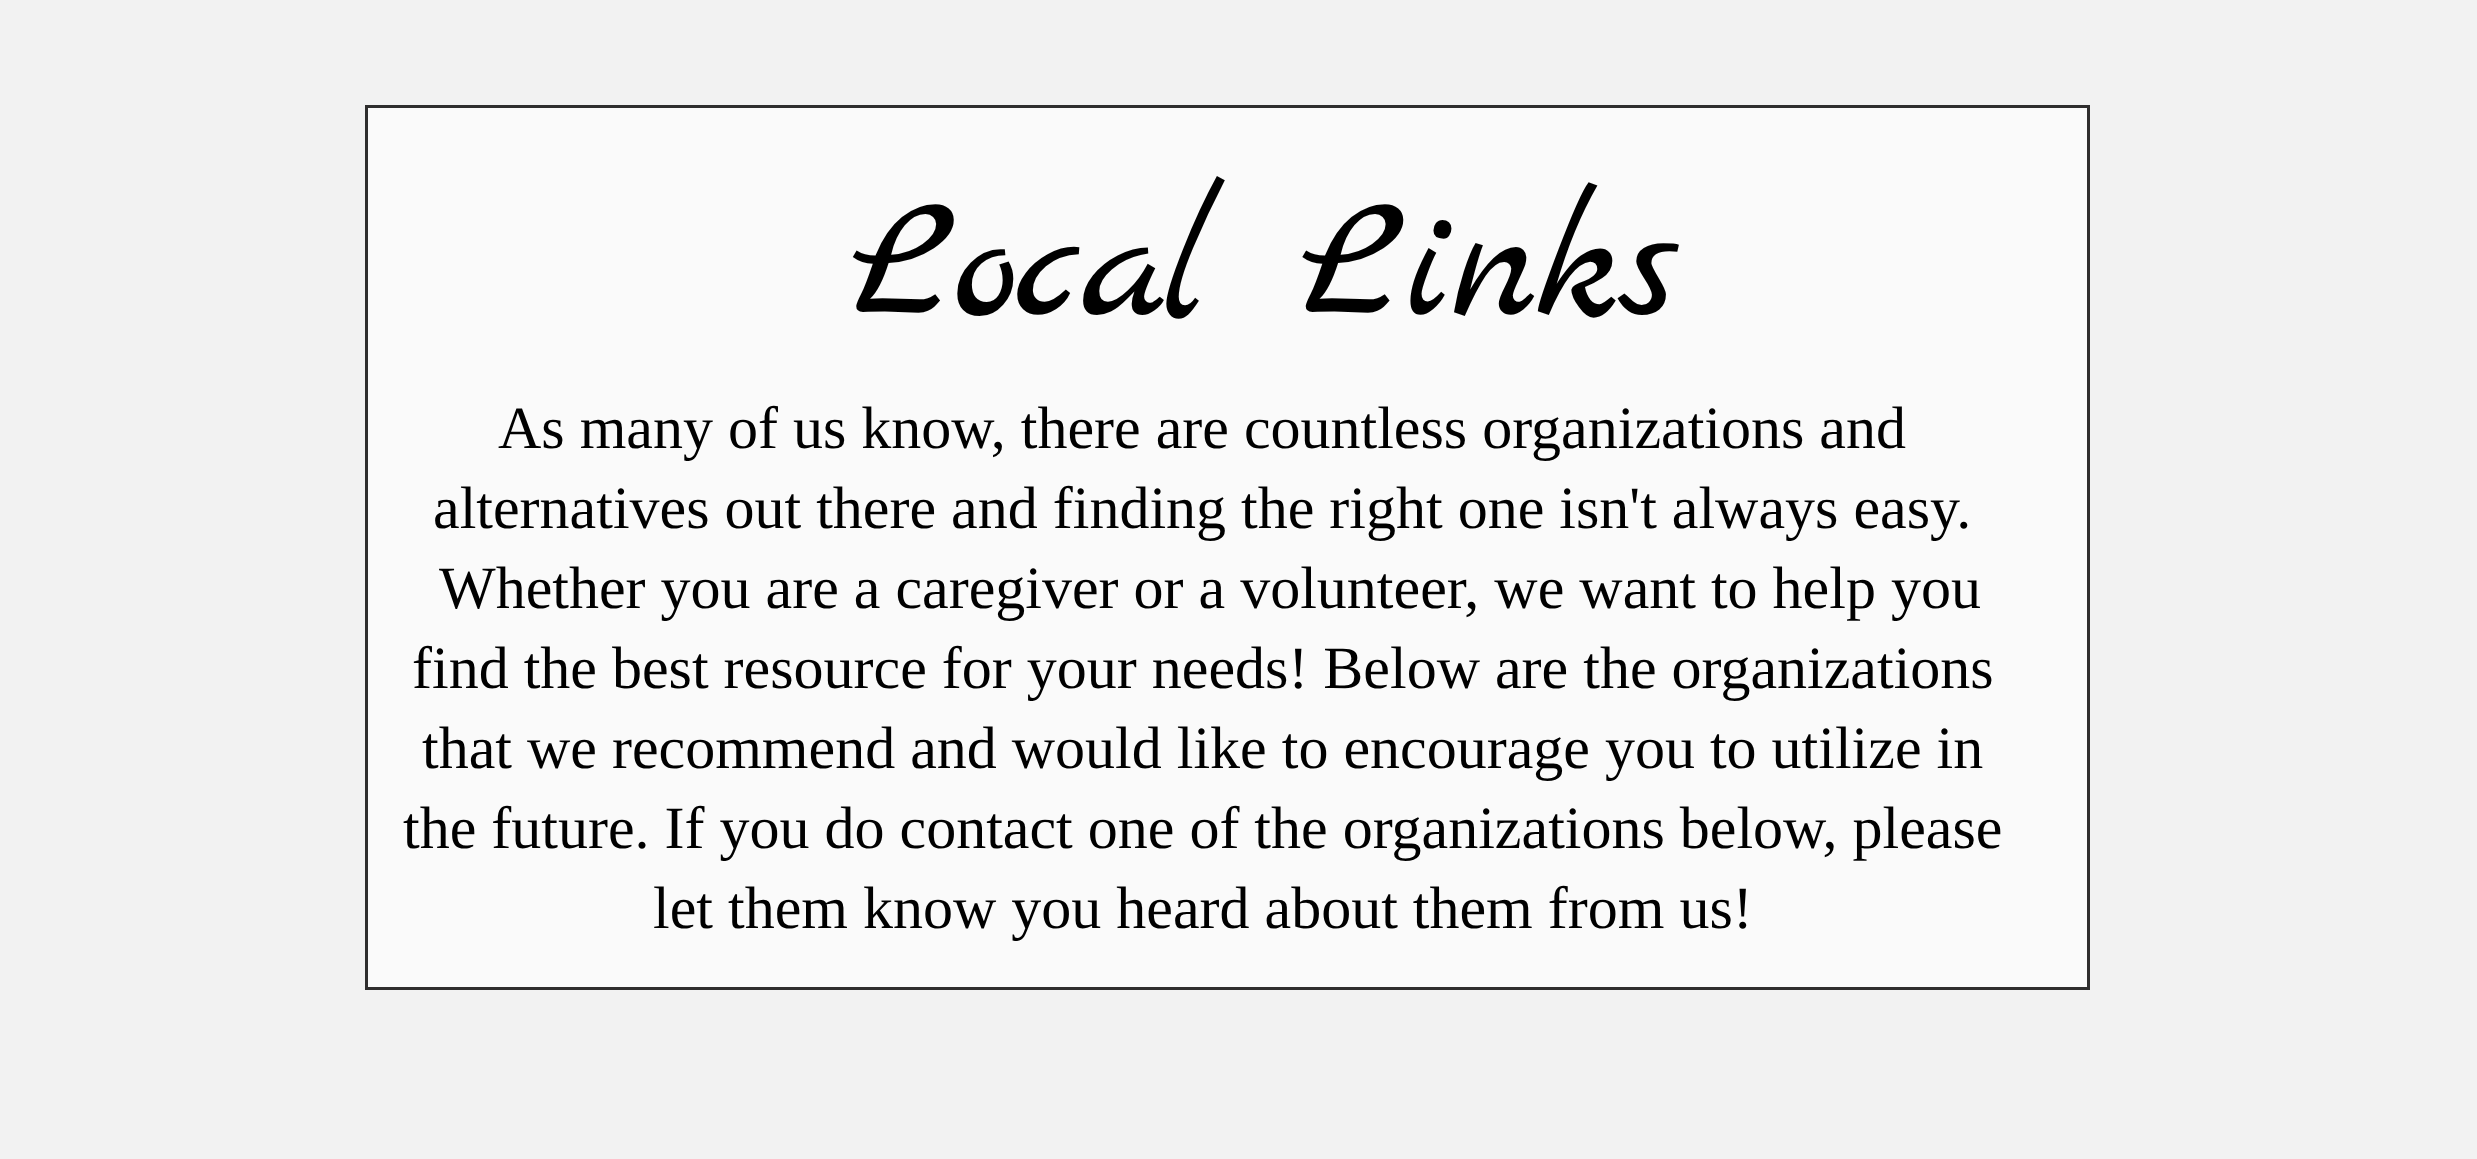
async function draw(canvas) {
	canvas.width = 2477;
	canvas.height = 1159;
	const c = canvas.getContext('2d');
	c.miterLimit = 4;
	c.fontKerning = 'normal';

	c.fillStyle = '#f2f2f2';
	c.fillRect(0, 0, 2477, 1159);
	c.fillStyle = '#fafafa';
	c.beginPath();
	c.rect(366.5, 106.5, 1722, 882);
	c.fill();
	c.strokeStyle = '#2f2e2e';
	c.lineWidth = 3;
	c.stroke();
	c.font = '180px Marck Script';
	c.fillStyle = '#000';
	c.fillText('Local Links', 851, 315);
	c.font = '60px Liberation Serif';
	for (const [text, x, y] of [
		['As many of us know, there are countless organizations and', 498, 448],
		['alternatives out there and finding the right one isn\'t always easy.', 433, 528],
		['Whether you are a caregiver or a volunteer, we want to help you', 439, 608],
		['find the best resource for your needs! Below are the organizations', 412, 688],
		['that we recommend and would like to encourage you to utilize in', 422, 768],
		['the future. If you do contact one of the organizations below, please', 403, 848],
		['let them know you heard about them from us!', 653, 928],
	]) {
		c.fillText(text, x, y);
	}
}

draw(document.querySelector('canvas'));
